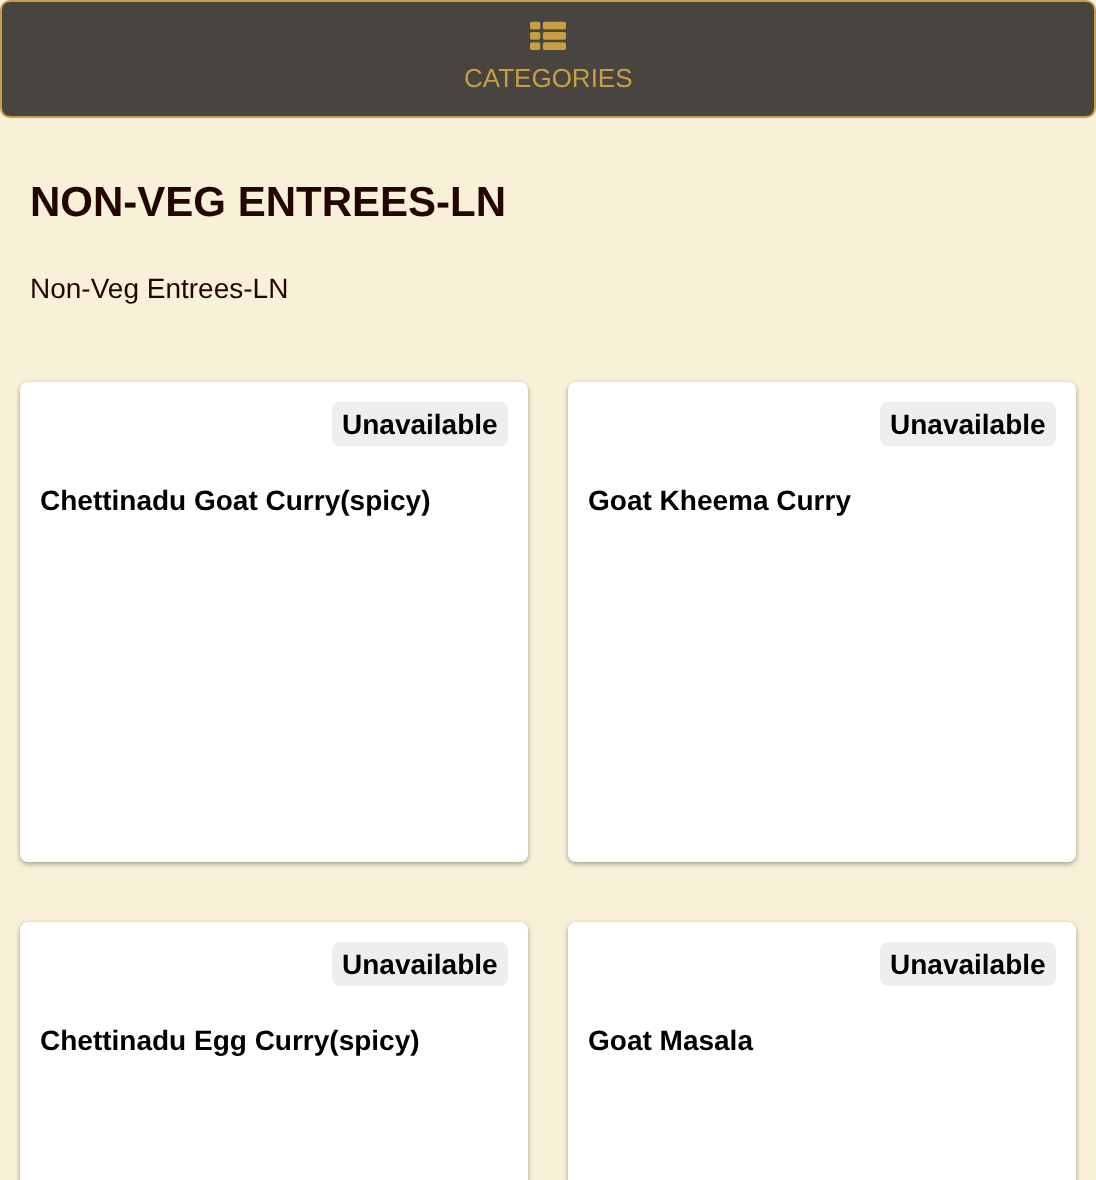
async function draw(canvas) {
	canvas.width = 1096;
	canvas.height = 1180;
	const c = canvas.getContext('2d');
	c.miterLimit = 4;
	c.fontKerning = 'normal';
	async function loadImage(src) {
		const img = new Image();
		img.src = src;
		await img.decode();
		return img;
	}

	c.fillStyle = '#f8f1d8';
	c.fillRect(0, 0, 1096, 1180);
	c.fillStyle = '#484440';
	c.beginPath();
	c.roundRect(1, 1, 1094, 116, 9);
	c.fill();
	c.strokeStyle = '#c79e44';
	c.lineWidth = 2;
	c.stroke();
	c.drawImage(await loadImage('img1.png'), 530, 21, 36, 29);
	c.font = '26px Liberation Sans';
	c.fillStyle = '#c79e44';
	c.fillText('CATEGORIES', 464, 87);
	c.font = 'bold 42px Liberation Sans';
	c.fillStyle = '#240600';
	c.fillText('NON-VEG ENTREES-LN', 30, 216);
	c.font = '28px Liberation Sans';
	c.fillText('Non-Veg Entrees-LN', 30, 298);
	c.fillStyle = '#0000003d';
	c.filter = 'blur(2px)';
	c.beginPath();
	c.roundRect(20, 384, 508, 480, 8);
	c.fill();
	c.filter = 'none';
	c.fillStyle = '#0000001f';
	c.filter = 'blur(3px)';
	c.beginPath();
	c.roundRect(20, 384, 508, 480, 8);
	c.fill();
	c.filter = 'none';
	c.fillStyle = '#fff';
	c.beginPath();
	c.roundRect(20, 382, 508, 480, 8);
	c.fill();
	c.fillStyle = '#eee';
	c.beginPath();
	c.roundRect(332, 402, 176, 44, 8);
	c.fill();
	c.font = 'bold 28px Liberation Sans';
	c.fillStyle = '#000';
	c.fillText('Unavailable', 342, 434);
	c.fillText('Chettinadu Goat Curry(spicy)', 40, 510);
	c.fillStyle = '#0000003d';
	c.filter = 'blur(2px)';
	c.beginPath();
	c.roundRect(568, 384, 508, 480, 8);
	c.fill();
	c.filter = 'none';
	c.fillStyle = '#0000001f';
	c.filter = 'blur(3px)';
	c.beginPath();
	c.roundRect(568, 384, 508, 480, 8);
	c.fill();
	c.filter = 'none';
	c.fillStyle = '#fff';
	c.beginPath();
	c.roundRect(568, 382, 508, 480, 8);
	c.fill();
	c.fillStyle = '#eee';
	c.beginPath();
	c.roundRect(880, 402, 176, 44, 8);
	c.fill();
	c.fillStyle = '#000';
	c.fillText('Unavailable', 890, 434);
	c.fillText('Goat Kheema Curry', 588, 510);
	c.fillStyle = '#0000003d';
	c.filter = 'blur(2px)';
	c.beginPath();
	c.roundRect(20, 924, 508, 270, 8);
	c.fill();
	c.filter = 'none';
	c.fillStyle = '#0000001f';
	c.filter = 'blur(3px)';
	c.beginPath();
	c.roundRect(20, 924, 508, 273, 8);
	c.fill();
	c.filter = 'none';
	c.fillStyle = '#fff';
	c.beginPath();
	c.roundRect(20, 922, 508, 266, 8);
	c.fill();
	c.fillStyle = '#eee';
	c.beginPath();
	c.roundRect(332, 942, 176, 44, 8);
	c.fill();
	c.fillStyle = '#000';
	c.fillText('Unavailable', 342, 974);
	c.fillText('Chettinadu Egg Curry(spicy)', 40, 1050);
	c.fillStyle = '#0000003d';
	c.filter = 'blur(2px)';
	c.beginPath();
	c.roundRect(568, 924, 508, 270, 8);
	c.fill();
	c.filter = 'none';
	c.fillStyle = '#0000001f';
	c.filter = 'blur(3px)';
	c.beginPath();
	c.roundRect(568, 924, 508, 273, 8);
	c.fill();
	c.filter = 'none';
	c.fillStyle = '#fff';
	c.beginPath();
	c.roundRect(568, 922, 508, 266, 8);
	c.fill();
	c.fillStyle = '#eee';
	c.beginPath();
	c.roundRect(880, 942, 176, 44, 8);
	c.fill();
	c.fillStyle = '#000';
	c.fillText('Unavailable', 890, 974);
	c.fillText('Goat Masala', 588, 1050);
}

draw(document.querySelector('canvas'));
